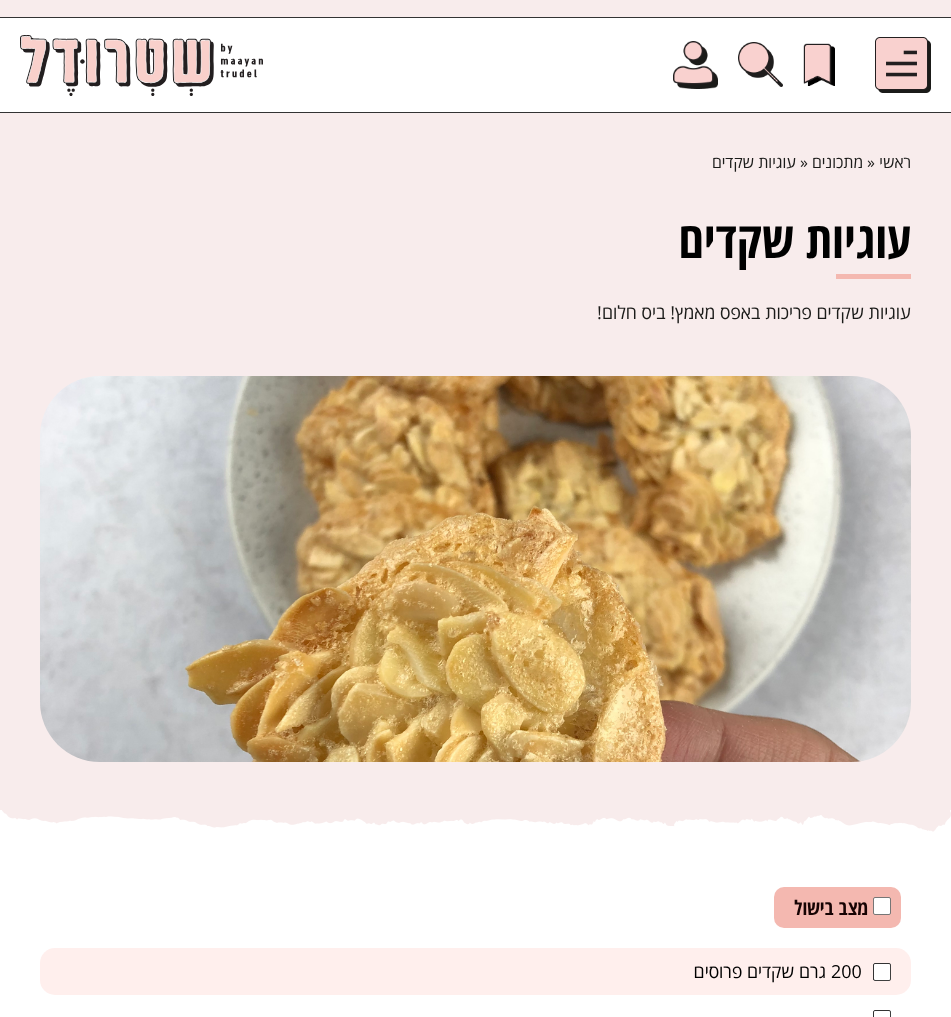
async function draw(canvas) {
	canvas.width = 951;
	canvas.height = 1017;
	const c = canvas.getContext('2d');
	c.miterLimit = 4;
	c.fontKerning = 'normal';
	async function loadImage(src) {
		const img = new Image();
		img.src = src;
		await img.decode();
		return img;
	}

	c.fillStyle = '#fff';
	c.fillRect(0, 0, 951, 1017);
	for (const [x, y, w, h, color] of [
		[0, 0, 951, 810, '#f8ecec'],
		[0, 18, 951, 94, '#fff'],
		[0, 17, 951, 1, '#333'],
		[0, 112, 951, 1, '#333'],
	]) {
		c.fillStyle = color;
		c.fillRect(x, y, w, h);
	}
	c.drawImage(await loadImage('img1.png'), 875, 37, 56, 56);
	c.drawImage(await loadImage('img2.png'), 803, 43, 32, 43);
	c.drawImage(await loadImage('img3.png'), 738, 42, 45, 45);
	c.drawImage(await loadImage('img4.png'), 673, 41, 45, 48);
	c.drawImage(await loadImage('img5.png'), 20, 35, 243, 61);
	c.direction = 'rtl';
	c.font = '16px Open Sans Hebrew';
	c.fillStyle = '#1b1b19';
	c.fillText('ראשי', 911, 168);
	c.direction = 'ltr';
	c.fillText('»', 867, 168);
	c.direction = 'rtl';
	c.fillText('מתכונים', 863, 168);
	c.direction = 'ltr';
	c.fillText('»', 800, 168);
	c.direction = 'rtl';
	c.fillText('עוגיות שקדים', 796, 168);
	c.font = 'bold 50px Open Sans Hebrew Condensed';
	c.fillStyle = '#000';
	c.fillText('עוגיות שקדים', 911, 258);
	c.fillStyle = '#f4b8b0';
	c.fillRect(836, 274, 75, 5);
	c.font = '18px Open Sans Hebrew';
	c.fillStyle = '#1b1b19';
	c.fillText('עוגיות שקדים פריכות באפס מאמץ! ביס חלום!', 911, 319);
	c.drawImage(await loadImage('img6.png'), 40, 376, 871, 386);
	c.drawImage(await loadImage('img7.png'), 2, 810, 949, 22);
	c.fillStyle = '#f4b8b0';
	c.beginPath();
	c.roundRect(774, 887, 127, 41, 10);
	c.fill();
	c.fillStyle = '#fff';
	c.beginPath();
	c.roundRect(873.5, 897.5, 17, 17, 1.5);
	c.fill();
	c.strokeStyle = '#767676';
	c.stroke();
	c.font = 'bold 20px Open Sans Hebrew Condensed';
	c.fillStyle = '#160303';
	c.fillText('מצב בישול', 868, 915);
	c.fillStyle = '#ffefed';
	c.beginPath();
	c.roundRect(40, 948, 871, 47, 15);
	c.fill();
	c.drawImage(await loadImage('img8.png'), 873, 963, 18, 18);
	c.direction = 'ltr';
	c.font = '18px Open Sans Hebrew';
	c.fillStyle = '#000';
	c.fillText('200', 831, 978);
	c.direction = 'rtl';
	c.fillText('גרם שקדים פרוסים', 826, 978);
	c.drawImage(await loadImage('img9.png'), 873, 1010, 18, 7);
}

draw(document.querySelector('canvas'));
